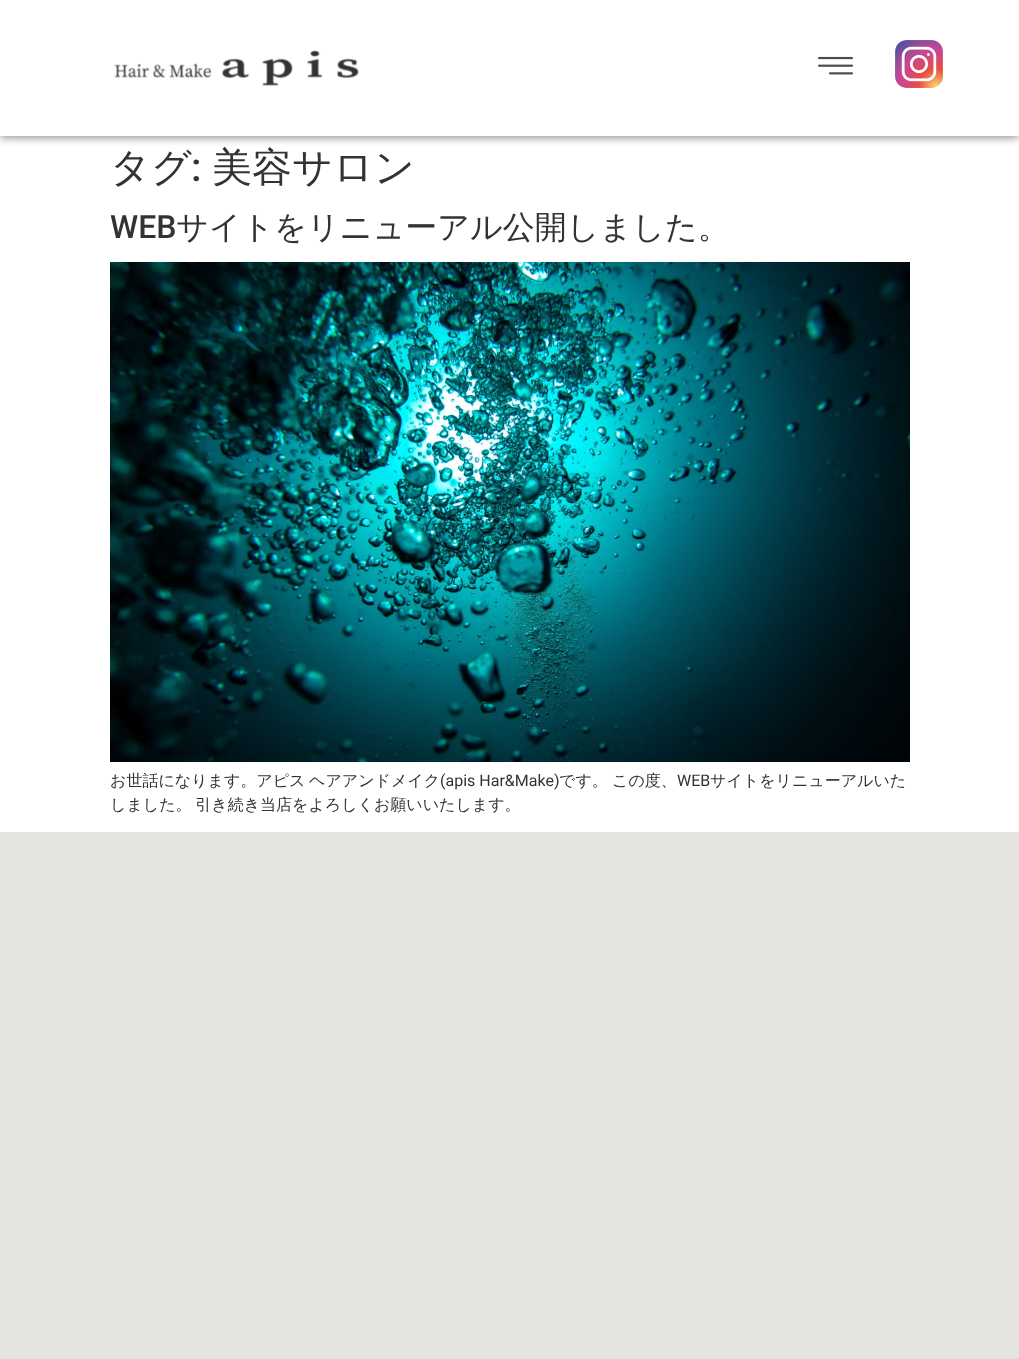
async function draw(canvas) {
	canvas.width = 1019;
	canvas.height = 1359;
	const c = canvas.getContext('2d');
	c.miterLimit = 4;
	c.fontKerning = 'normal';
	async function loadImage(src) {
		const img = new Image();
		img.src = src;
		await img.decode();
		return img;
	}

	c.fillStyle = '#fff';
	c.fillRect(0, 0, 1019, 1359);
	c.save();
	c.beginPath();
	c.rect(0, 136, 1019, 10);
	c.clip();
	c.fillStyle = '#00000080';
	c.filter = 'blur(5px)';
	c.beginPath();
	c.rect(0, 1, 1019, 136);
	c.fill();
	c.filter = 'none';
	c.restore();
	c.drawImage(await loadImage('img1.png'), 114, 50, 245, 36);
	c.drawImage(await loadImage('img2.png'), 818, 56, 35, 19);
	c.drawImage(await loadImage('img3.png'), 895, 40, 48, 48);
	c.font = '500 40px WenQuanYi Zen Hei';
	c.fillStyle = '#333';
	c.fillText('タグ', 110, 181);
	c.font = '500 40px Roboto';
	c.fillText(':', 191, 181);
	c.font = '500 40px WenQuanYi Zen Hei';
	c.fillText('美容サロン', 212, 181);
	c.font = '500 32px Roboto';
	c.fillText('WEB', 110, 238);
	c.font = '500 32px WenQuanYi Zen Hei';
	c.fillText('サイトをリニューアル公開しました。', 176, 238);
	c.drawImage(await loadImage('img4.png'), 110, 262, 800, 500);
	c.font = '500 16px WenQuanYi Zen Hei';
	c.fillText('お世話になります。アピス', 110, 786);
	c.fillText('ヘアアンドメイク', 309, 786);
	c.font = '16px Roboto';
	c.fillText('(apis Har&Make)', 440, 786);
	c.font = '500 16px WenQuanYi Zen Hei';
	c.fillText('です。', 559, 786);
	c.fillText('この度、', 612, 786);
	c.font = '16px Roboto';
	c.fillText('WEB', 677, 786);
	c.font = '500 16px WenQuanYi Zen Hei';
	c.fillText('サイトをリニューアルいた', 710, 786);
	c.wordSpacing = '-1px';
	c.fillText('しました。 引き続き当店をよろしくお願いいたします。', 110, 810);
	c.fillStyle = '#e5e3df';
	c.fillRect(0, 832, 1019, 527);
}

draw(document.querySelector('canvas'));
